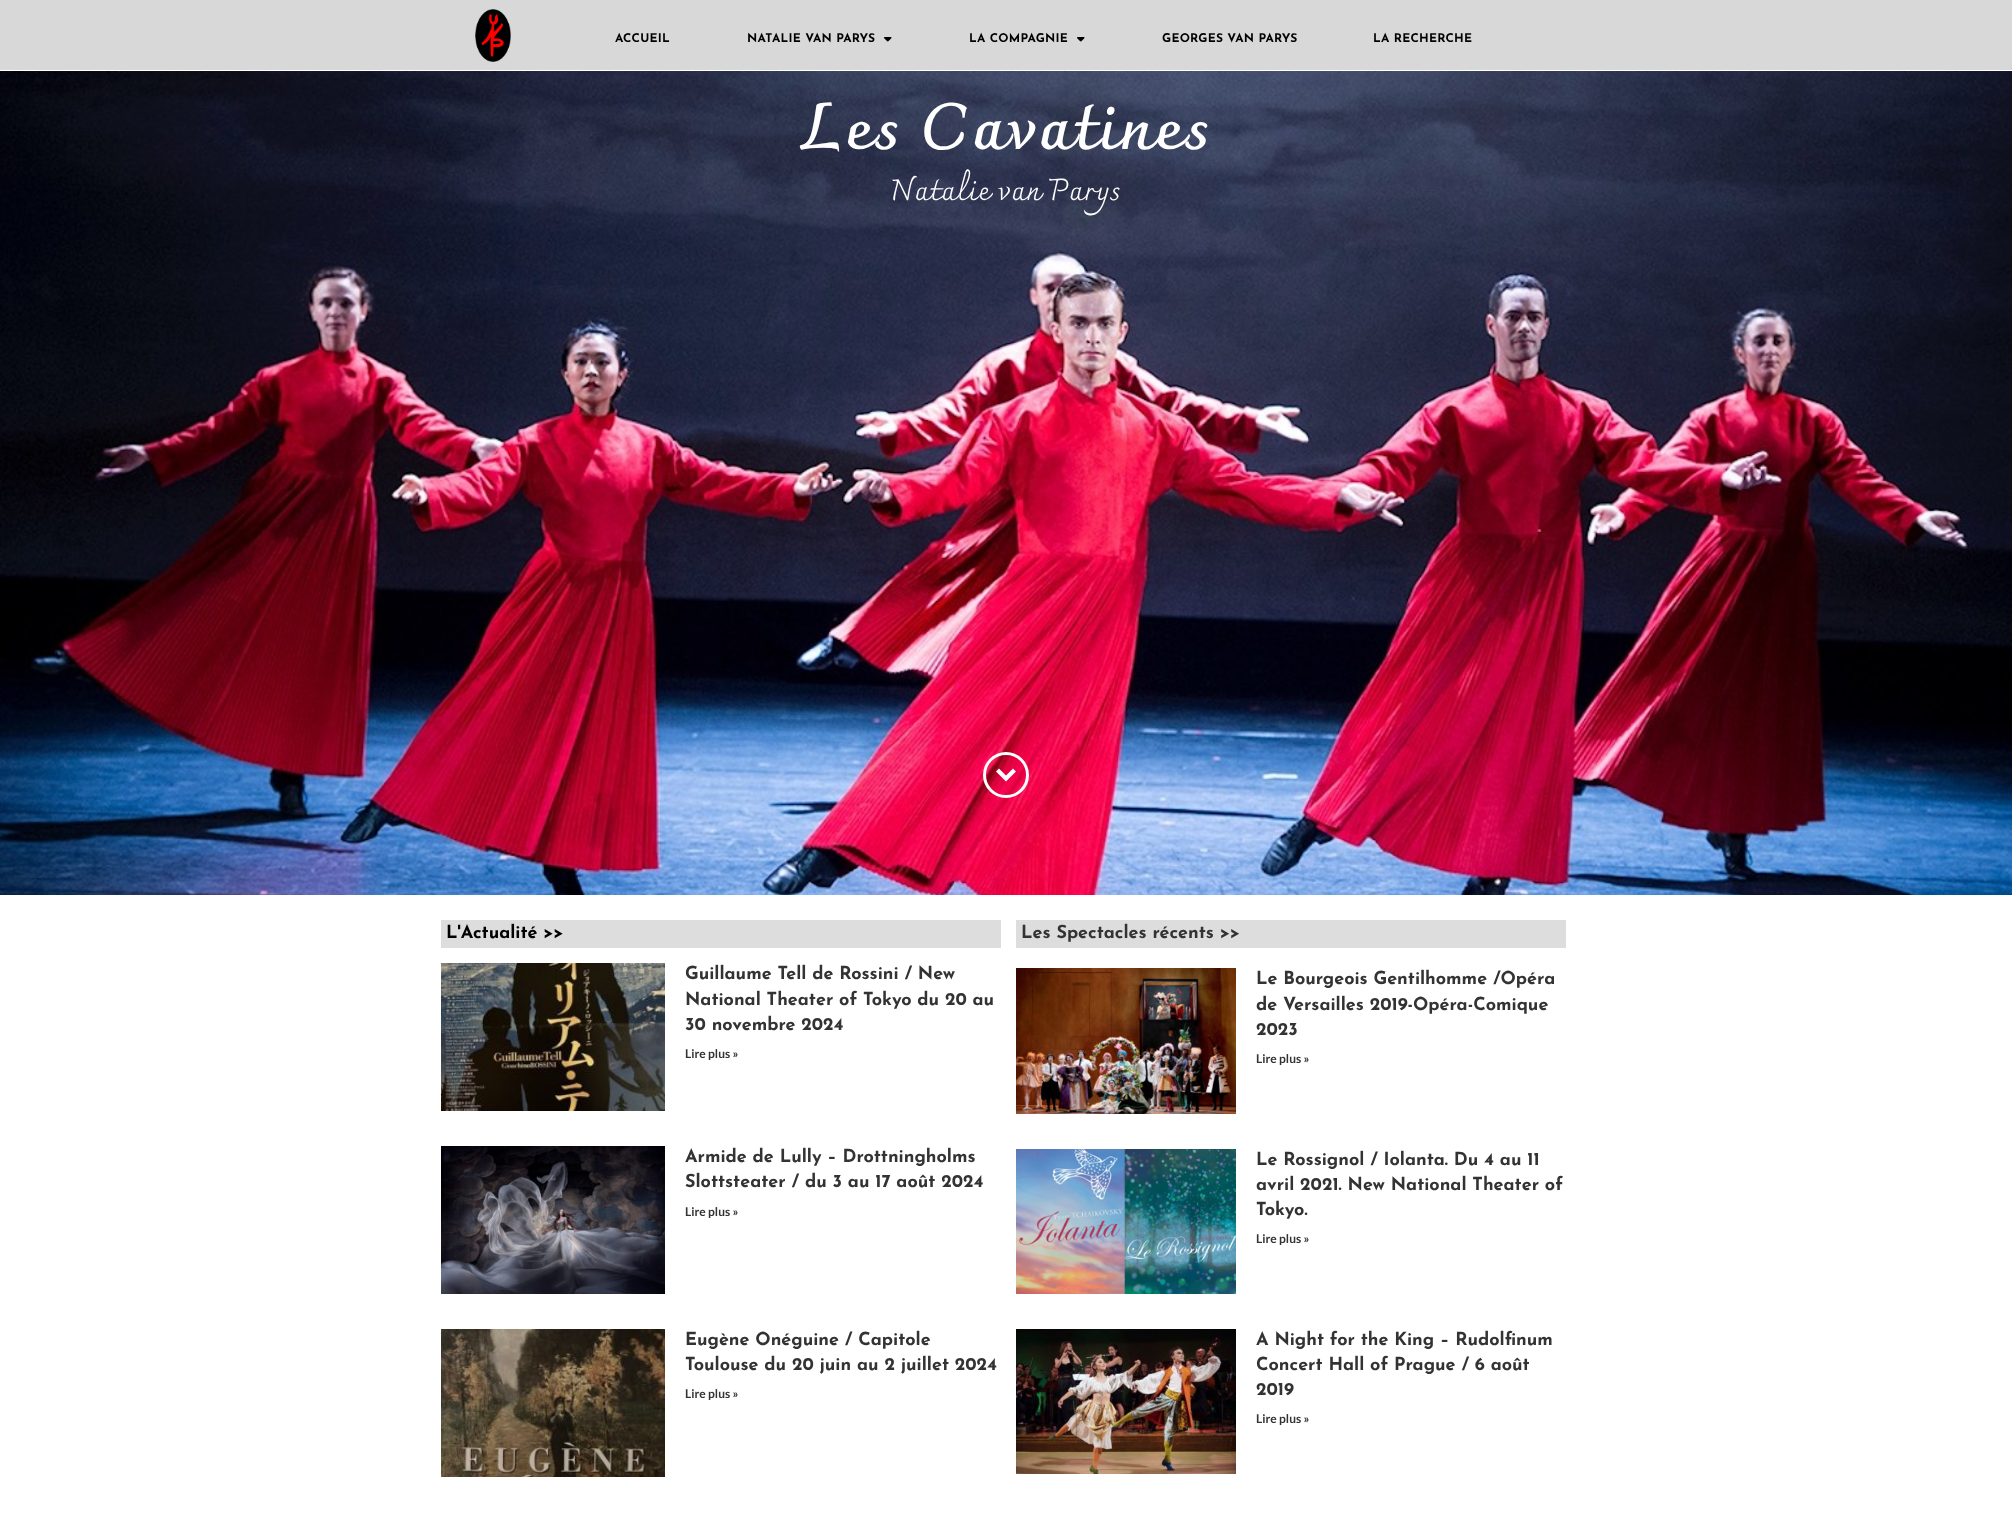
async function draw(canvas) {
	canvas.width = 2012;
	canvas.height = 1523;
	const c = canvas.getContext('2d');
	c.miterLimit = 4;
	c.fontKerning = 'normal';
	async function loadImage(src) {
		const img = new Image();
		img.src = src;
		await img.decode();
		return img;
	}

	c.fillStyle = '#fff';
	c.fillRect(0, 0, 2012, 1523);
	c.fillStyle = '#d8d8d8';
	c.fillRect(0, 0, 2012, 70);
	c.drawImage(await loadImage('img1.png'), 475, 9, 36, 53);
	c.letterSpacing = '0.25px';
	c.font = 'bold 12px Josefin Sans';
	c.fillStyle = '#000';
	c.fillText('ACCUEIL', 615, 42);
	c.fillText('NATALIE VAN PARYS', 747, 42);
	c.drawImage(await loadImage('img2.png'), 884, 37, 8, 5);
	c.fillText('LA COMPAGNIE', 969, 42);
	c.drawImage(await loadImage('img2.png'), 1077, 37, 8, 5);
	c.fillText('GEORGES VAN PARYS', 1162, 42);
	c.fillText('LA RECHERCHE', 1373, 42);
	c.drawImage(await loadImage('img3.png'), 0, 71, 2012, 824);
	c.letterSpacing = '2px';
	c.font = 'bold 65px Charmonman';
	c.fillStyle = '#fff';
	c.fillText('Les Cavatines', 801, 149);
	c.letterSpacing = '0.4px';
	c.font = '30px Charmonman';
	c.fillText('Natalie van Parys', 890, 200);
	c.beginPath();
	c.arc(1006, 775, 21.5, 0, 2 * Math.PI);
	c.strokeStyle = '#fff';
	c.lineWidth = 3;
	c.stroke();
	c.beginPath();
	c.moveTo(996, 771.5);
	c.lineTo(999, 768.5);
	c.lineTo(1006, 775.5);
	c.lineTo(1013, 768.5);
	c.lineTo(1016, 771.5);
	c.lineTo(1006, 781.5);
	c.closePath();
	c.fill();
	c.fillStyle = '#ddd';
	c.fillRect(441, 920, 560, 28);
	c.letterSpacing = '0px';
	c.font = 'bold 18px Josefin Sans';
	c.fillStyle = '#000';
	c.fillText('L\'Actualité >>', 446, 938);
	c.fillStyle = '#ddd';
	c.fillRect(1016, 920, 550, 28);
	c.fillStyle = '#333';
	c.fillText('Les Spectacles récents >>', 1021, 938);
	c.drawImage(await loadImage('img4.png'), 441, 963, 224, 148);
	for (const [text, x, y] of [
		['Guillaume Tell de Rossini / New', 685, 979],
		['National Theater of Tokyo du 20 au', 685, 1005],
		['30 novembre 2024', 685, 1030],
	]) {
		c.fillText(text, x, y);
	}
	c.font = 'bold 12px Lato';
	c.fillText('Lire plus »', 685, 1058);
	c.drawImage(await loadImage('img5.png'), 441, 1146, 224, 148);
	c.font = 'bold 18px Josefin Sans';
	c.fillText('Armide de Lully – Drottningholms', 685, 1162);
	c.fillText('Slottsteater / du 3 au 17 août 2024', 685, 1187);
	c.font = 'bold 12px Lato';
	c.fillText('Lire plus »', 685, 1216);
	c.drawImage(await loadImage('img6.png'), 441, 1329, 224, 148);
	c.font = 'bold 18px Josefin Sans';
	c.fillText('Eugène Onéguine / Capitole', 685, 1345);
	c.fillText('Toulouse du 20 juin au 2 juillet 2024', 685, 1370);
	c.font = 'bold 12px Lato';
	c.fillText('Lire plus »', 685, 1398);
	c.drawImage(await loadImage('img7.png'), 1016, 968, 220, 146);
	c.font = 'bold 18px Josefin Sans';
	for (const [text, x, y] of [
		['Le Bourgeois Gentilhomme /Opéra', 1256, 984],
		['de Versailles 2019-Opéra-Comique', 1256, 1010],
		['2023', 1256, 1035],
	]) {
		c.fillText(text, x, y);
	}
	c.font = 'bold 12px Lato';
	c.fillText('Lire plus »', 1256, 1063);
	c.drawImage(await loadImage('img8.png'), 1016, 1149, 220, 145);
	c.font = 'bold 18px Josefin Sans';
	for (const [text, x, y] of [
		['Le Rossignol / Iolanta. Du 4 au 11', 1256, 1165],
		['avril 2021. New National Theater of', 1256, 1190],
		['Tokyo.', 1256, 1215],
	]) {
		c.fillText(text, x, y);
	}
	c.font = 'bold 12px Lato';
	c.fillText('Lire plus »', 1256, 1243);
	c.drawImage(await loadImage('img9.png'), 1016, 1329, 220, 145);
	c.font = 'bold 18px Josefin Sans';
	for (const [text, x, y] of [
		['A Night for the King – Rudolfinum', 1256, 1345],
		['Concert Hall of Prague / 6 août', 1256, 1370],
		['2019', 1256, 1395],
	]) {
		c.fillText(text, x, y);
	}
	c.font = 'bold 12px Lato';
	c.fillText('Lire plus »', 1256, 1423);
}

draw(document.querySelector('canvas'));
